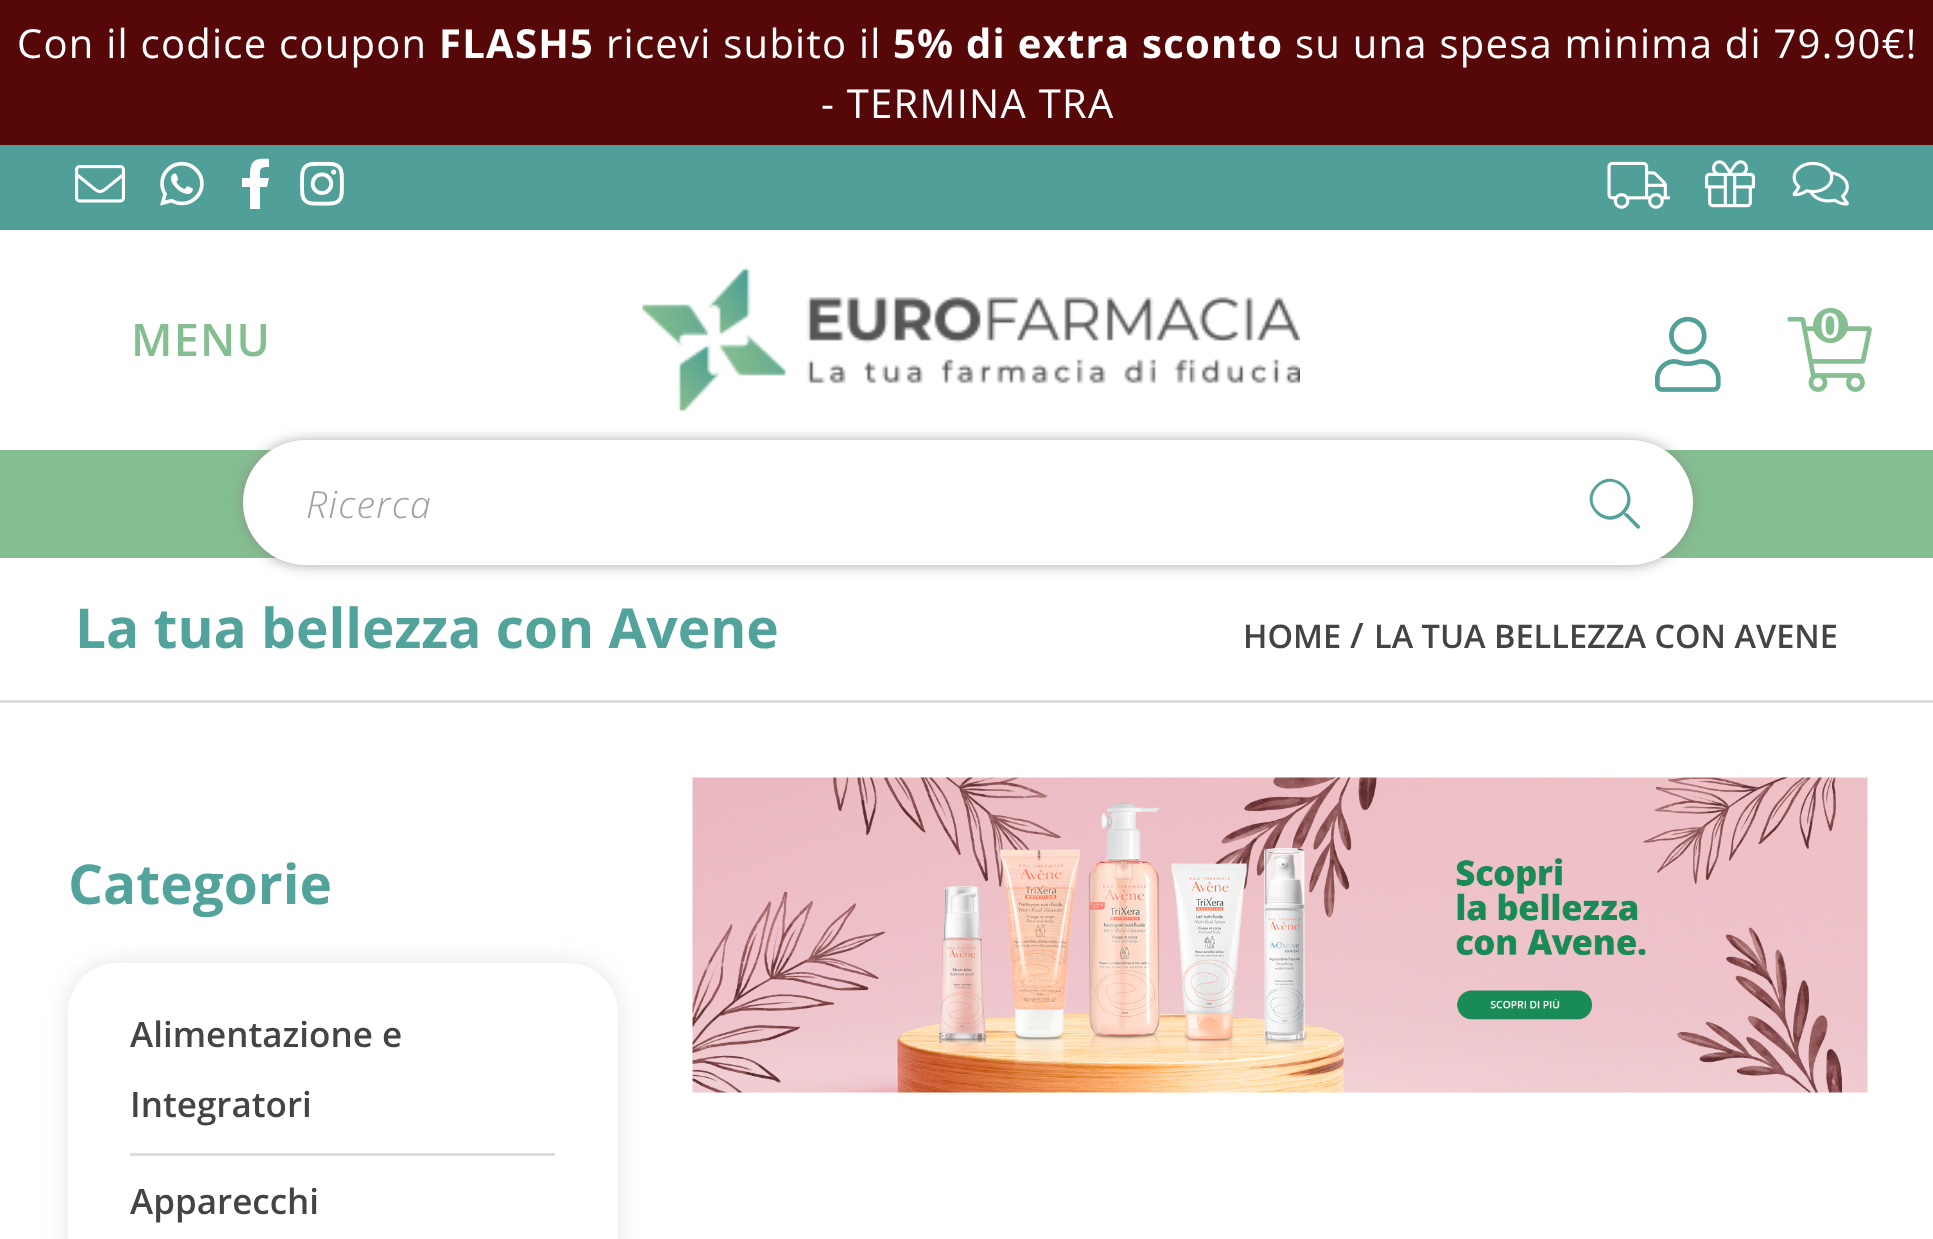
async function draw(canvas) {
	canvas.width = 1933;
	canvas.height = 1239;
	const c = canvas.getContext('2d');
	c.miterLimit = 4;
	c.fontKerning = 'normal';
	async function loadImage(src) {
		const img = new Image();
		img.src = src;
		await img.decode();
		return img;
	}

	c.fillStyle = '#fff';
	c.fillRect(0, 0, 1933, 1239);
	c.fillStyle = '#560808';
	c.fillRect(0, 0, 1933, 145);
	c.letterSpacing = '1.25px';
	c.font = '40px Open Sans';
	c.fillStyle = '#fff';
	c.fillText('Con il codice coupon', 17, 58);
	c.font = 'bold 40px Open Sans';
	c.fillText('FLASH5', 439, 58);
	c.font = '40px Open Sans';
	c.fillText('ricevi subito il', 606, 58);
	c.font = 'bold 40px Open Sans';
	c.fillText('5% di extra sconto', 893, 58);
	c.font = '40px Open Sans';
	c.fillText('su una spesa minima di 79.90€!', 1295, 58);
	c.fillText('- TERMINA TRA', 821, 118);
	c.fillStyle = '#509f98';
	c.fillRect(0, 145, 1933, 85);
	c.drawImage(await loadImage('img1.png'), 75, 165, 50, 38);
	c.drawImage(await loadImage('img2.png'), 160, 161, 44, 45);
	c.fillStyle = '#fff';
	c.beginPath();
	c.moveTo(267, 187);
	c.lineTo(260, 187);
	c.lineTo(260, 209);
	c.lineTo(250, 209);
	c.lineTo(250, 187);
	c.lineTo(242, 187);
	c.lineTo(242, 178);
	c.lineTo(250, 178);
	c.bezierCurveTo(250, 161, 253, 158, 269, 159);
	c.lineTo(269, 167);
	c.bezierCurveTo(259, 167, 260, 169, 260, 178);
	c.lineTo(269, 178);
	c.closePath();
	c.fill();
	c.drawImage(await loadImage('img3.png'), 300, 161, 44, 45);
	c.drawImage(await loadImage('img4.png'), 1607, 161, 63, 48);
	c.drawImage(await loadImage('img5.png'), 1705, 160, 50, 48);
	c.drawImage(await loadImage('img6.png'), 1792, 161, 57, 45);
	c.font = '600 45px Open Sans';
	c.fillStyle = '#85be90';
	c.fillText('MENU', 131, 356);
	c.drawImage(await loadImage('img7.png'), 642, 267, 658, 146);
	c.drawImage(await loadImage('img8.png'), 1655, 316, 66, 76);
	c.drawImage(await loadImage('img9.png'), 1787, 316, 85, 76);
	c.beginPath();
	c.arc(1830.5, 325.5, 17.5, 0, 2 * Math.PI);
	c.fill();
	c.font = '600 35px Open Sans';
	c.fillStyle = '#fff';
	c.fillText('0', 1820, 338);
	c.fillStyle = '#85be90';
	c.fillRect(0, 450, 1933, 108);
	c.fillStyle = '#888';
	c.filter = 'blur(7.5px)';
	c.beginPath();
	c.roundRect(245, 443, 1445, 120, 60);
	c.fill();
	c.filter = 'none';
	c.fillStyle = '#fff';
	c.beginPath();
	c.roundRect(243, 440, 1450, 125, 62.5);
	c.fill();
	c.font = 'italic 300 37.5px Open Sans';
	c.fillStyle = '#a0a0a0';
	c.fillText('Ricerca', 306, 518);
	c.fillStyle = '#53a39b';
	c.beginPath();
	c.moveTo(1640, 526);
	c.lineTo(1640, 527);
	c.bezierCurveTo(1639, 532, 1634, 525, 1633, 524);
	c.lineTo(1627, 518);
	c.bezierCurveTo(1625, 516, 1624, 516, 1624, 514);
	c.bezierCurveTo(1605, 532, 1577, 503, 1596, 485);
	c.bezierCurveTo(1614, 466, 1643, 494, 1625, 513);
	c.bezierCurveTo(1628, 513, 1629, 515, 1631, 517);
	c.closePath();
	c.moveTo(1598, 511);
	c.bezierCurveTo(1614, 527, 1638, 503, 1622, 487);
	c.bezierCurveTo(1606, 471, 1582, 495, 1598, 511);
	c.closePath();
	c.fill();
	c.fillStyle = '#ddd';
	c.fillRect(0, 700, 1933, 3);
	c.letterSpacing = '0px';
	c.font = 'bold 55px Open Sans';
	c.fillStyle = '#52a39b';
	c.fillText('La tua bellezza con Avene', 75, 648);
	c.font = '600 32.5px Open Sans';
	c.fillStyle = '#444';
	c.fillText('HOME', 1243, 648);
	c.font = '600 35px Open Sans';
	c.fillText('/', 1350, 648);
	c.font = '600 32.5px Open Sans';
	c.fillText('LA TUA BELLEZZA CON AVENE', 1374, 648);
	c.font = 'bold 55px Open Sans';
	c.fillStyle = '#52a39b';
	c.fillText('Categorie', 68, 904);
	c.save();
	c.beginPath();
	c.moveTo(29, 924);
	c.lineTo(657, 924);
	c.lineTo(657, 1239);
	c.lineTo(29, 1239);
	c.closePath();
	c.moveTo(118, 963);
	c.lineTo(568, 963);
	c.bezierCurveTo(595.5, 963, 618, 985.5, 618, 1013);
	c.lineTo(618, 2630);
	c.bezierCurveTo(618, 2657.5, 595.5, 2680, 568, 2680);
	c.lineTo(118, 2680);
	c.bezierCurveTo(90.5, 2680, 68, 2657.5, 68, 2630);
	c.lineTo(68, 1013);
	c.bezierCurveTo(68, 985.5, 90.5, 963, 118, 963);
	c.closePath();
	c.clip('evenodd');
	c.fillStyle = '#cccccc80';
	c.filter = 'blur(12.5px)';
	c.beginPath();
	c.roundRect(68, 963, 550, 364, 50);
	c.fill();
	c.filter = 'none';
	c.restore();
	c.fillStyle = '#ddd';
	c.fillRect(130, 1153, 425, 3);
	c.font = '600 35px Open Sans';
	c.fillStyle = '#444';
	for (const [text, x, y] of [
		['Alimentazione e', 130, 1047],
		['Integratori', 130, 1117],
		['Apparecchi', 130, 1214],
	]) {
		c.fillText(text, x, y);
	}
	c.drawImage(await loadImage('img10.png'), 692, 777, 1176, 316);
}

draw(document.querySelector('canvas'));
